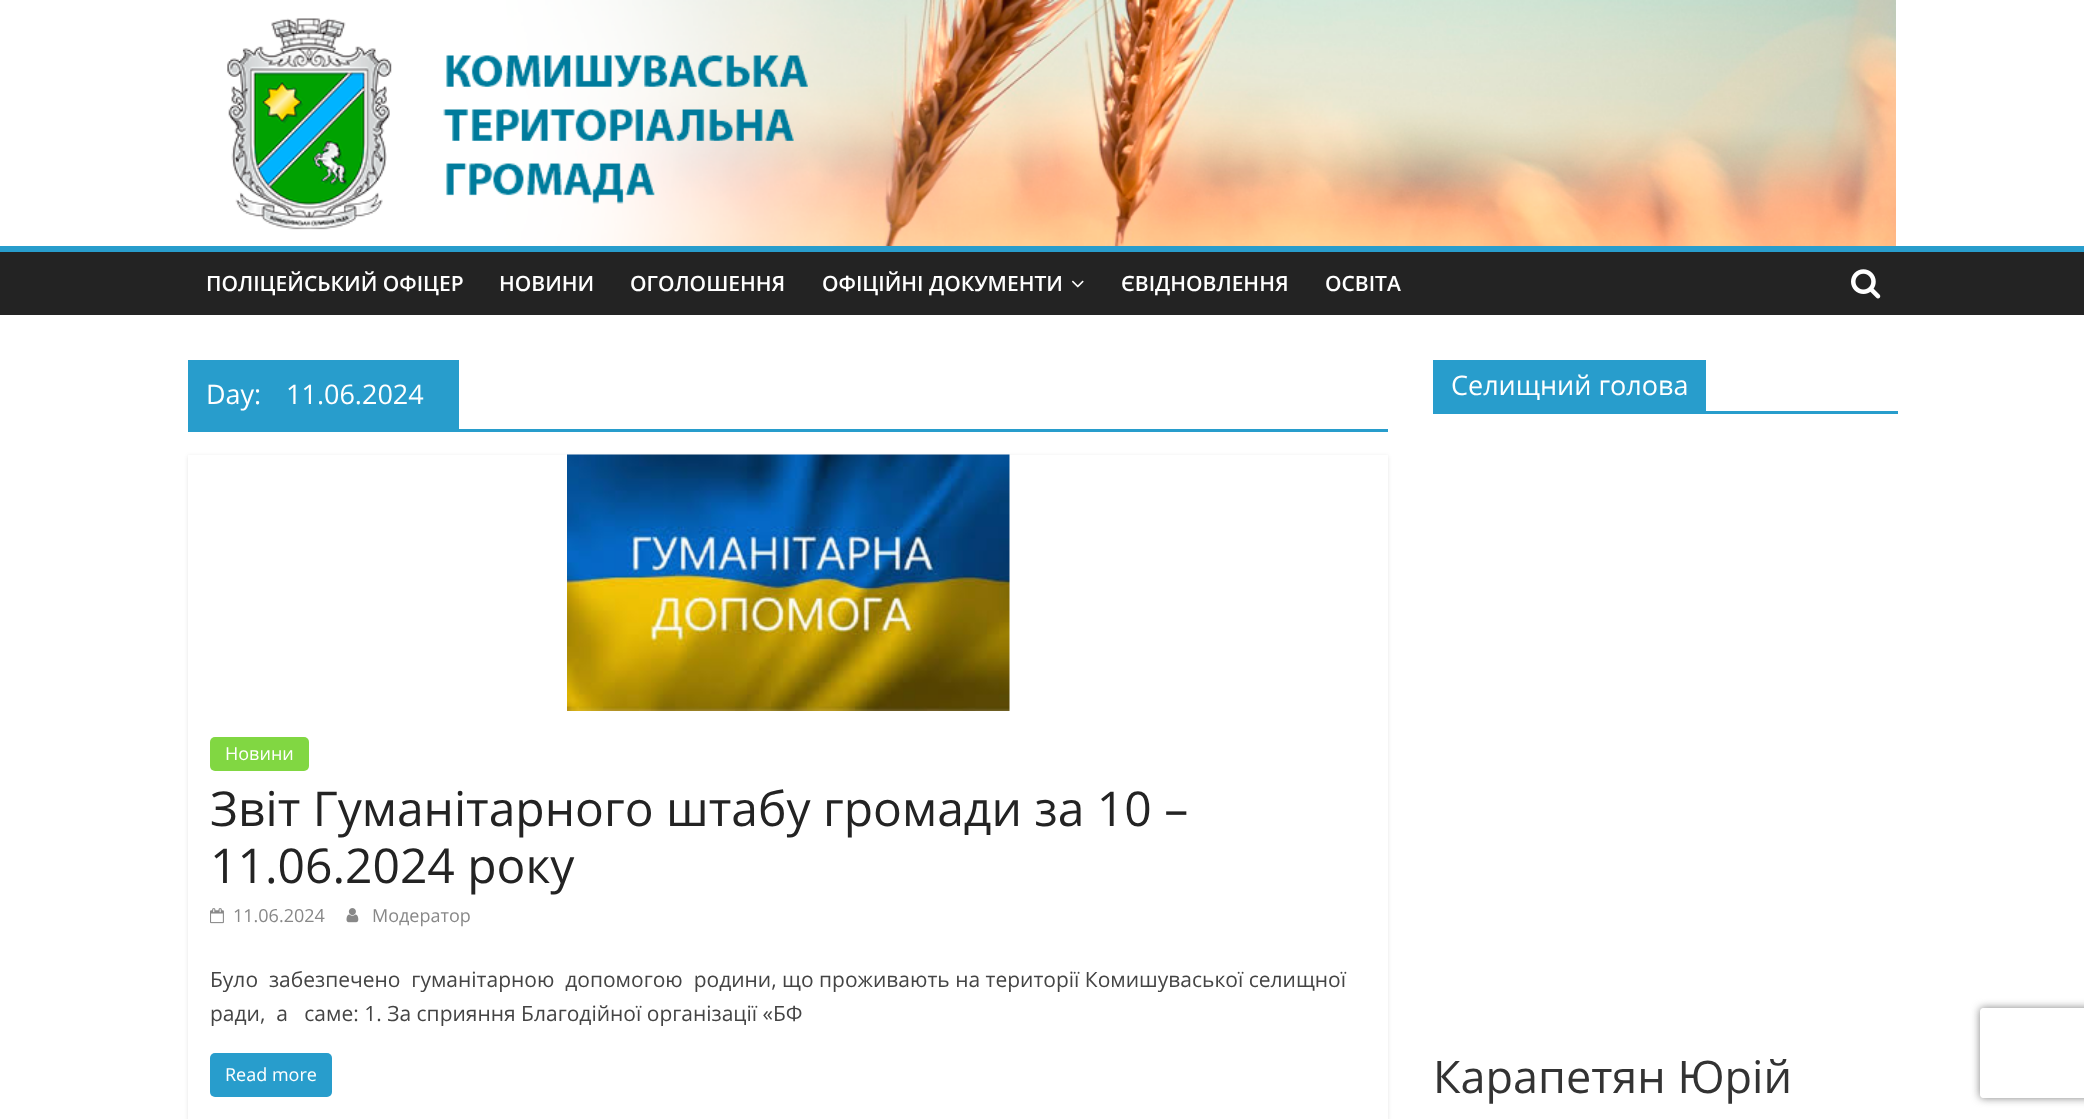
async function draw(canvas) {
	canvas.width = 2084;
	canvas.height = 1119;
	const c = canvas.getContext('2d');
	c.miterLimit = 4;
	c.fontKerning = 'normal';
	async function loadImage(src) {
		const img = new Image();
		img.src = src;
		await img.decode();
		return img;
	}

	c.fillStyle = '#fff';
	c.fillRect(0, 0, 2084, 1119);
	c.drawImage(await loadImage('img1.png'), 227, 0, 1669, 246);
	c.fillStyle = '#232323';
	c.fillRect(0, 252, 2084, 63);
	c.fillStyle = '#289dcc';
	c.fillRect(0, 246, 2084, 6);
	c.font = '600 21px Open Sans';
	c.fillStyle = '#fff';
	for (const [text, x, y] of [
		['ПОЛІЦЕЙСЬКИЙ ОФІЦЕР', 206, 291],
		['НОВИНИ', 499, 291],
		['ОГОЛОШЕННЯ', 630, 291],
		['ОФІЦІЙНІ ДОКУМЕНТИ', 822, 291],
	]) {
		c.fillText(text, x, y);
	}
	c.drawImage(await loadImage('img2.png'), 1071, 280, 13, 8);
	c.fillText('ЄВІДНОВЛЕННЯ', 1121, 291);
	c.fillText('ОСВIТА', 1325, 291);
	c.drawImage(await loadImage('img3.png'), 1851, 269, 30, 30);
	c.fillStyle = '#289dcc';
	c.fillRect(188, 429, 1200, 3);
	c.fillRect(188, 360, 271, 69);
	c.font = '27px Open Sans';
	c.fillStyle = '#fff';
	c.fillText('Day:', 206, 404);
	c.fillText('11.06.2024', 286, 404);
	c.save();
	c.beginPath();
	c.moveTo(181, 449);
	c.lineTo(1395, 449);
	c.lineTo(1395, 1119);
	c.lineTo(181, 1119);
	c.closePath();
	c.moveTo(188, 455);
	c.lineTo(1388, 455);
	c.lineTo(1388, 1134);
	c.lineTo(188, 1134);
	c.closePath();
	c.clip('evenodd');
	c.fillStyle = '#0000001a';
	c.filter = 'blur(2px)';
	c.beginPath();
	c.rect(188, 456, 1200, 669);
	c.fill();
	c.filter = 'none';
	c.restore();
	c.drawImage(await loadImage('img4.png'), 567, 454, 443, 257);
	c.fillStyle = '#81d742';
	c.beginPath();
	c.roundRect(210, 737, 99, 34, 5);
	c.fill();
	c.font = '18px Open Sans';
	c.fillStyle = '#fff';
	c.fillText('Новини', 225, 760);
	c.font = '48px Open Sans';
	c.fillStyle = '#232323';
	c.fillText('Звіт Гуманітарного штабу громади за 10 –', 210, 826);
	c.fillText('11.06.2024 року', 210, 883);
	c.drawImage(await loadImage('img5.png'), 210, 908, 14, 16);
	c.font = '18px Open Sans';
	c.fillStyle = '#888';
	c.fillText('11.06.2024', 233, 922);
	c.drawImage(await loadImage('img6.png'), 346, 908, 13, 15);
	c.fillText('Модератор', 372, 922);
	c.font = '21px Open Sans';
	c.fillStyle = '#444';
	c.fillText('Було  забезпечено  гуманітарною  допомогою  родини, що проживають на території Комишуваської селищної', 210, 987);
	c.fillText('ради,  а   саме: 1. За сприяння Благодійної організації «БФ', 210, 1021);
	c.fillStyle = '#289dcc';
	c.beginPath();
	c.roundRect(210, 1053, 122, 44, 5);
	c.fill();
	c.font = '18px Open Sans';
	c.fillStyle = '#fff';
	c.fillText('Read more', 225, 1081);
	c.fillStyle = '#289dcc';
	c.fillRect(1433, 411, 465, 3);
	c.fillRect(1433, 360, 273, 51);
	c.font = '27px Open Sans';
	c.fillStyle = '#fff';
	c.fillText('Селищний голова', 1451, 395);
	c.font = '45px Open Sans';
	c.fillStyle = '#333';
	c.fillText('Карапетян Юрій', 1433, 1093);
	c.save();
	c.beginPath();
	c.moveTo(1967, 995);
	c.lineTo(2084, 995);
	c.lineTo(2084, 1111);
	c.lineTo(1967, 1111);
	c.closePath();
	c.moveTo(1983, 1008);
	c.lineTo(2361, 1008);
	c.bezierCurveTo(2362.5, 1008, 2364, 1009.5, 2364, 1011);
	c.lineTo(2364, 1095);
	c.bezierCurveTo(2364, 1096.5, 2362.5, 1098, 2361, 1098);
	c.lineTo(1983, 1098);
	c.bezierCurveTo(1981.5, 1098, 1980, 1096.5, 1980, 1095);
	c.lineTo(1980, 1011);
	c.bezierCurveTo(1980, 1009.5, 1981.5, 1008, 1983, 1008);
	c.closePath();
	c.clip('evenodd');
	c.fillStyle = '#808080';
	c.filter = 'blur(4px)';
	c.beginPath();
	c.roundRect(1980, 1008, 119, 90, 3);
	c.fill();
	c.filter = 'none';
	c.restore();
}

draw(document.querySelector('canvas'));
